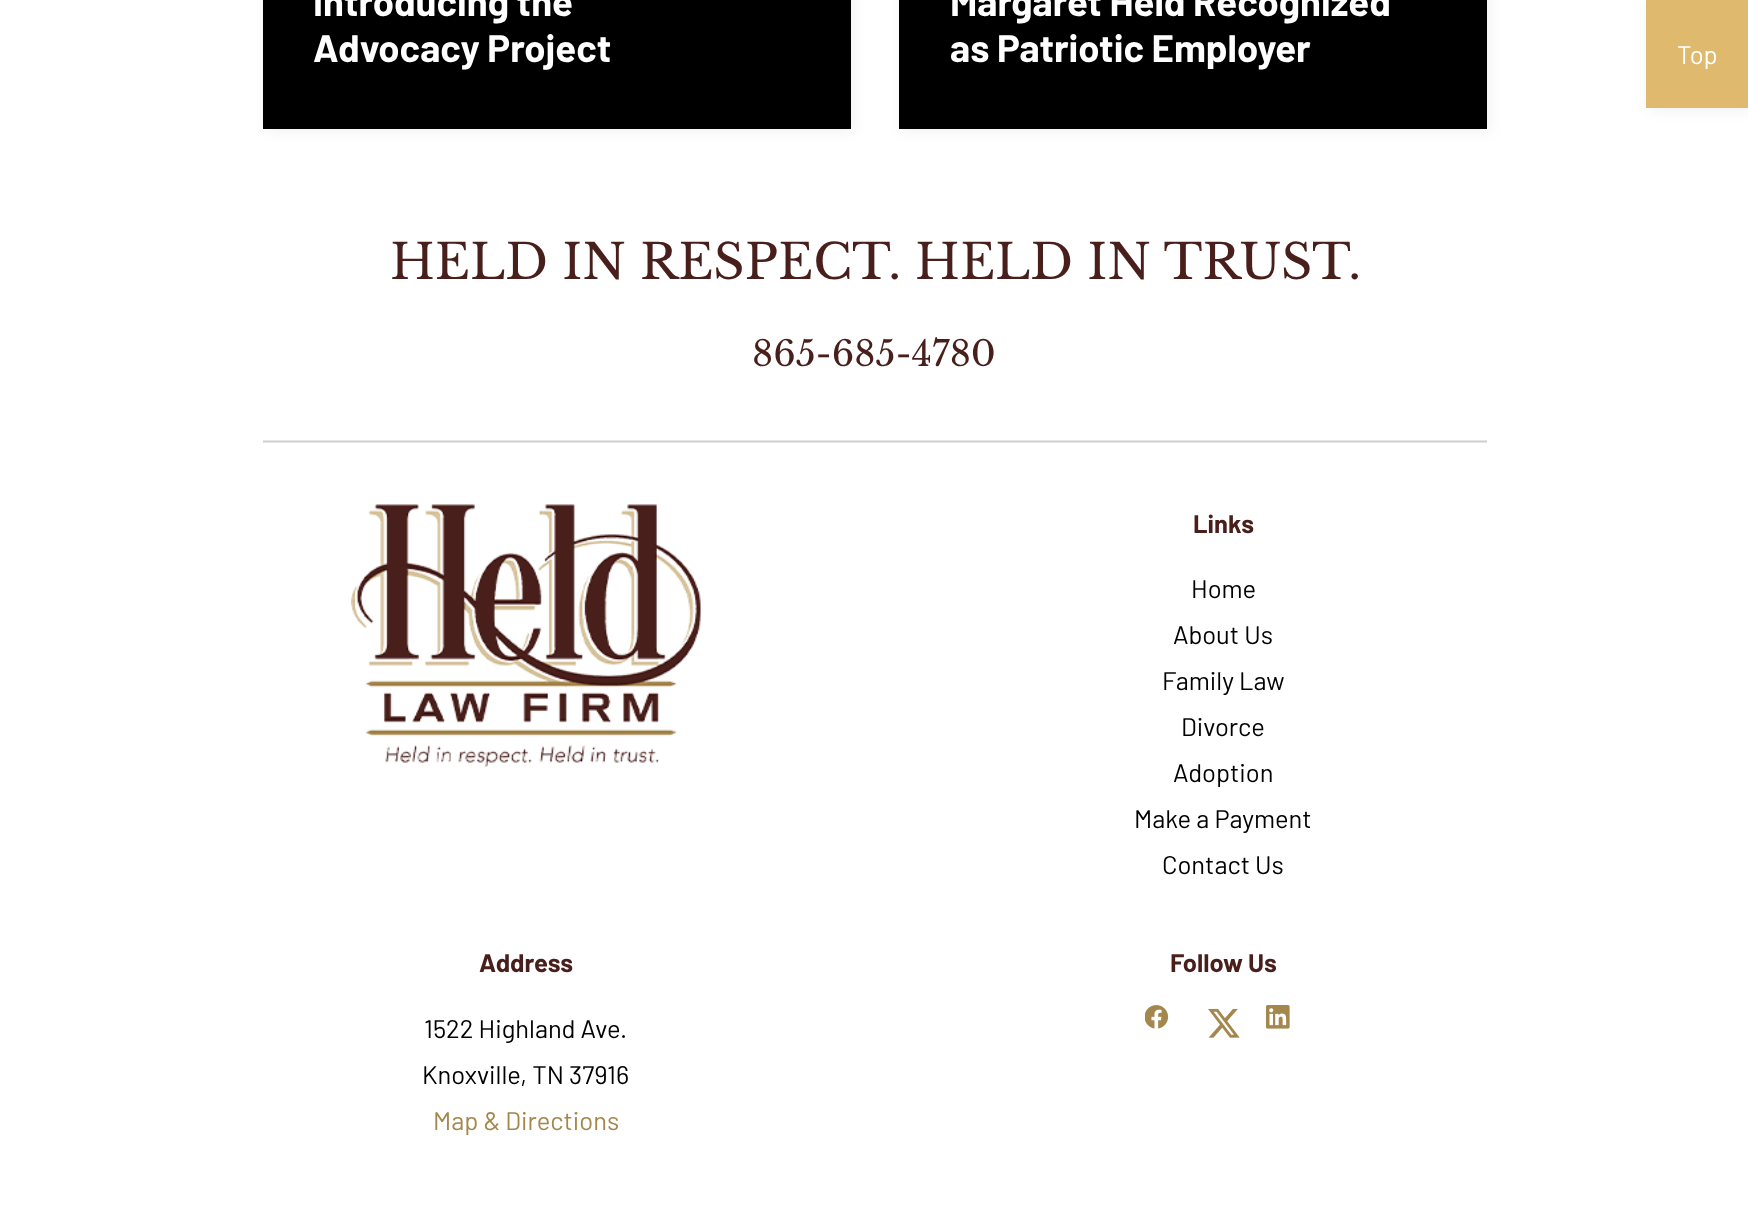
async function draw(canvas) {
	canvas.width = 1748;
	canvas.height = 1232;
	const c = canvas.getContext('2d');
	c.miterLimit = 4;
	c.fontKerning = 'normal';
	async function loadImage(src) {
		const img = new Image();
		img.src = src;
		await img.decode();
		return img;
	}

	c.fillStyle = '#fff';
	c.fillRect(0, 0, 1748, 1232);
	c.fillStyle = '#e6e6e6';
	c.fillRect(263, 442, 1224, 1);
	c.fillStyle = '#0000000d';
	c.filter = 'blur(6.5px)';
	c.beginPath();
	c.rect(266, -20, 588, 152);
	c.fill();
	c.filter = 'none';
	c.fillStyle = '#000';
	c.fillRect(263, 0, 588, 129);
	c.font = 'bold 38.25px Barlow';
	c.fillStyle = '#fff';
	c.fillText('Introducing the', 313, 16);
	c.fillText('Advocacy Project', 313, 62);
	c.fillStyle = '#0000000d';
	c.filter = 'blur(6.5px)';
	c.beginPath();
	c.rect(902, -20, 588, 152);
	c.fill();
	c.filter = 'none';
	c.fillStyle = '#000';
	c.fillRect(899, 0, 588, 129);
	c.fillStyle = '#fff';
	c.fillText('Margaret Held Recognized', 950, 16);
	c.fillText('as Patriotic Employer', 950, 62);
	c.fillStyle = '#0000000d';
	c.filter = 'blur(6.5px)';
	c.beginPath();
	c.rect(1649, 3, 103, 108);
	c.fill();
	c.filter = 'none';
	c.fillStyle = '#dfb96e';
	c.fillRect(1646, 0, 102, 108);
	c.font = '25.5px Barlow';
	c.fillStyle = '#fff';
	c.fillText('Top', 1677, 64);
	c.fillStyle = '#e6e6e6';
	c.fillRect(263, 440, 1224, 1);
	c.fillStyle = '#cfcfcf';
	c.fillRect(263, 441, 1224, 1);
	c.font = '48.5px Libre Baskerville';
	c.fillStyle = '#481f1b';
	c.fillText('HELD IN RESPECT. HELD IN TRUST.', 390, 279);
	c.font = '35px Libre Baskerville';
	c.fillText('865-685-4780', 752, 366);
	c.drawImage(await loadImage('img1.png'), 351, 504, 350, 263);
	c.font = 'bold 25.5px Barlow';
	c.fillText('Links', 1193, 533);
	c.font = '25.5px Barlow';
	c.fillStyle = '#000';
	for (const [text, x, y] of [
		['Home', 1191, 598],
		['About Us', 1173, 644],
		['Family Law', 1162, 690],
		['Divorce', 1181, 736],
		['Adoption', 1173, 782],
		['Make a Payment', 1134, 828],
		['Contact Us', 1162, 874],
	]) {
		c.fillText(text, x, y);
	}
	c.font = 'bold 25.5px Barlow';
	c.fillStyle = '#481f1b';
	c.fillText('Address', 479, 972);
	c.font = '25.5px Barlow';
	c.fillStyle = '#000';
	c.fillText('1522 Highland Ave.', 424, 1038);
	c.fillText('Knoxville, TN 37916', 422, 1084);
	c.fillStyle = '#a4874d';
	c.fillText('Map & Directions', 433, 1130);
	c.font = 'bold 25.5px Barlow';
	c.fillStyle = '#481f1b';
	c.fillText('Follow Us', 1170, 972);
	c.drawImage(await loadImage('img2.png'), 1145, 1005, 24, 24);
	c.drawImage(await loadImage('img3.png'), 1208, 1008, 32, 30);
	c.drawImage(await loadImage('img4.png'), 1266, 1005, 24, 24);
}

draw(document.querySelector('canvas'));
